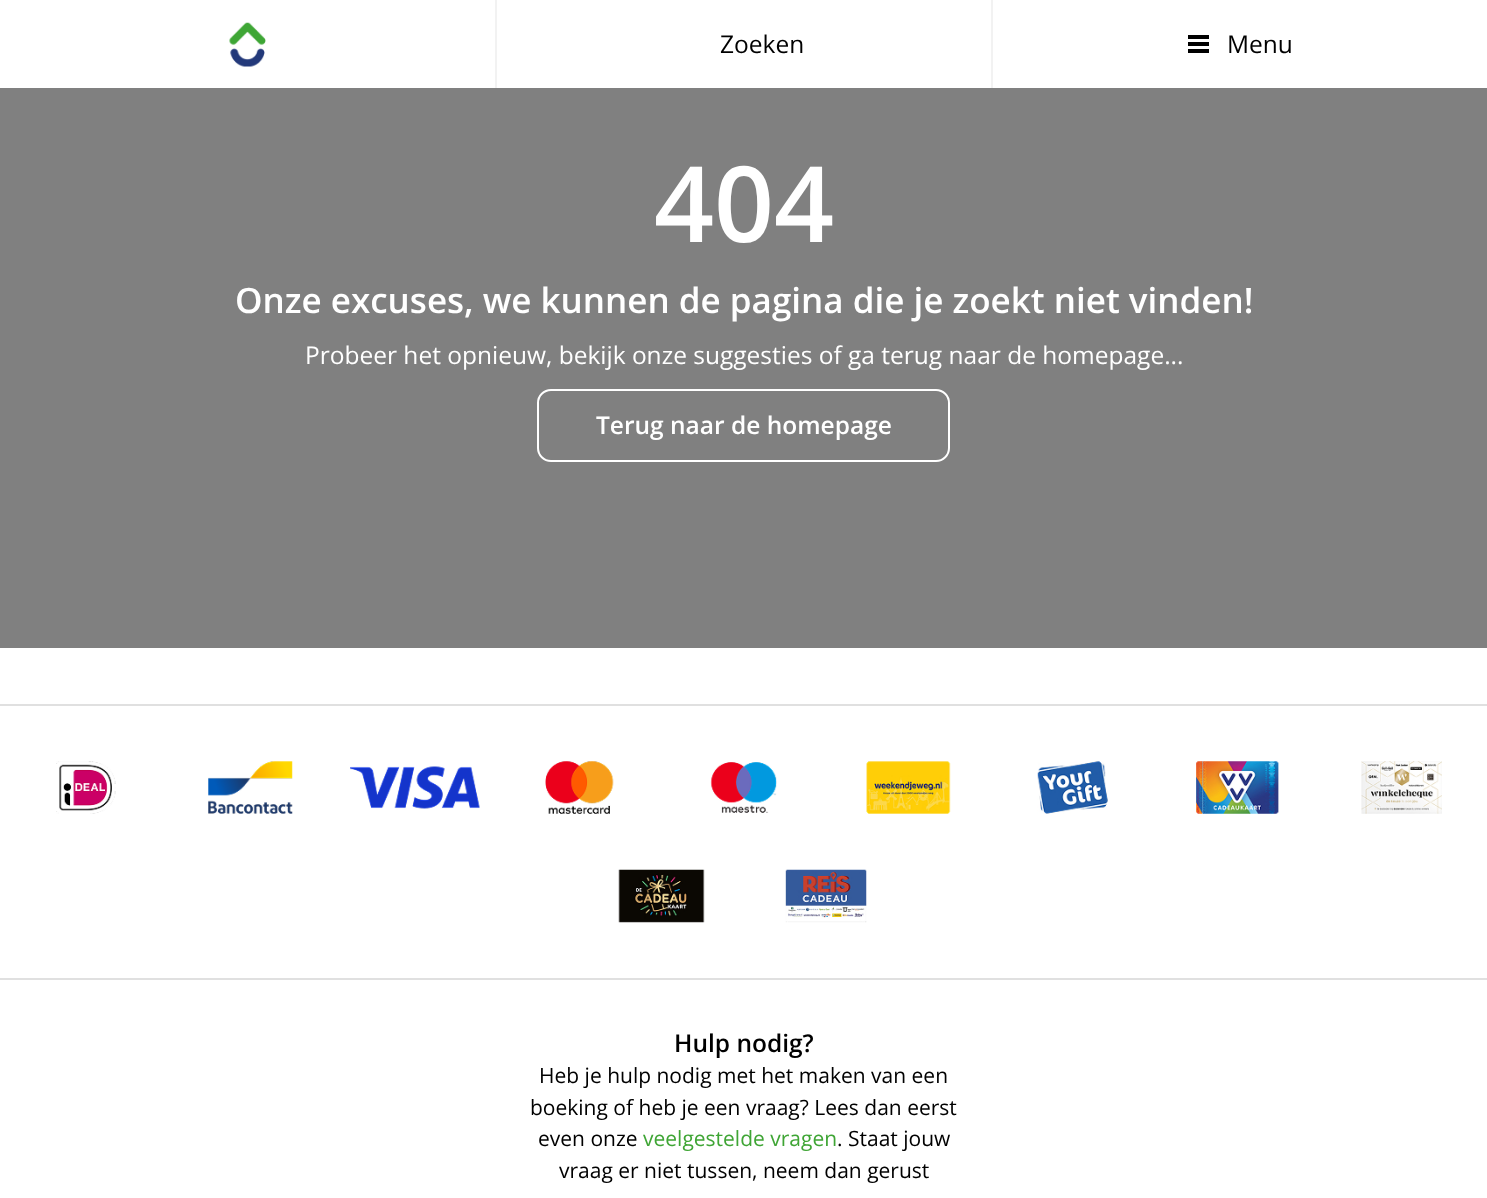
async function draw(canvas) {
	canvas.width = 1487;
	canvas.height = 1198;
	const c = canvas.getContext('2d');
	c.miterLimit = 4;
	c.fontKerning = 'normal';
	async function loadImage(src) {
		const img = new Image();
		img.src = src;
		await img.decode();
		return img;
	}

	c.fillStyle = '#fff';
	c.fillRect(0, 0, 1487, 1198);
	c.fillStyle = '#f2f2f2';
	c.fillRect(495, 0, 2, 88);
	c.drawImage(await loadImage('img1.png'), 229, 22, 37, 45);
	c.fillRect(991, 0, 2, 88);
	c.font = '24.5px Open Sans';
	c.fillStyle = '#000';
	c.fillText('Zoeken', 720, 53);
	for (const [x, y, w, h, color] of [
		[1188, 35, 21, 4, '#000'],
		[1188, 42, 21, 4, '#000'],
		[1188, 49, 21, 4, '#000'],
	]) {
		c.fillStyle = color;
		c.fillRect(x, y, w, h);
	}
	c.fillText('Menu', 1227, 53);
	c.fillStyle = '#808080';
	c.fillRect(0, 88, 1487, 560);
	c.font = '600 105px Open Sans';
	c.fillStyle = '#fff';
	c.fillText('404', 654, 242);
	c.font = '600 35px Open Sans';
	c.fillText('Onze excuses, we kunnen de pagina die je zoekt niet vinden!', 235, 313);
	c.font = '24.5px Open Sans';
	c.fillText('Probeer het opnieuw, bekijk onze suggesties of ga terug naar de homepage...', 305, 364);
	c.beginPath();
	c.roundRect(538, 390, 411, 71, 13);
	c.strokeStyle = '#fff';
	c.lineWidth = 2;
	c.stroke();
	c.font = '600 24.5px Open Sans';
	c.fillText('Terug naar de homepage', 596, 434);
	c.fillStyle = '#e0e0e0';
	c.fillRect(0, 704, 1487, 2);
	c.drawImage(await loadImage('img2.png'), 56, 761, 60, 53);
	c.drawImage(await loadImage('img3.png'), 208, 761, 85, 53);
	c.drawImage(await loadImage('img4.png'), 350, 766, 130, 43);
	c.drawImage(await loadImage('img5.png'), 545, 761, 69, 53);
	c.drawImage(await loadImage('img6.png'), 710, 762, 67, 51);
	c.drawImage(await loadImage('img7.png'), 866, 761, 85, 53);
	c.drawImage(await loadImage('img8.png'), 1037, 761, 71, 53);
	c.drawImage(await loadImage('img9.png'), 1196, 761, 83, 53);
	c.drawImage(await loadImage('img10.png'), 1361, 761, 81, 53);
	c.drawImage(await loadImage('img11.png'), 618, 869, 87, 54);
	c.drawImage(await loadImage('img12.png'), 785, 869, 82, 54);
	c.fillRect(0, 978, 1487, 2);
	c.fillStyle = '#000';
	c.fillText('Hulp nodig?', 674, 1052);
	c.font = '21px Open Sans';
	for (const [text, x, y] of [
		['Heb je hulp nodig met het maken van een', 539, 1083],
		['boeking of heb je een vraag? Lees dan eerst', 530, 1115],
		['even onze', 538, 1146],
	]) {
		c.fillText(text, x, y);
	}
	c.fillStyle = '#3fa535';
	c.fillText('veelgestelde vragen', 643, 1146);
	c.fillStyle = '#000';
	c.fillText('. Staat jouw', 837, 1146);
	c.fillText('vraag er niet tussen, neem dan gerust', 559, 1178);
}

draw(document.querySelector('canvas'));
